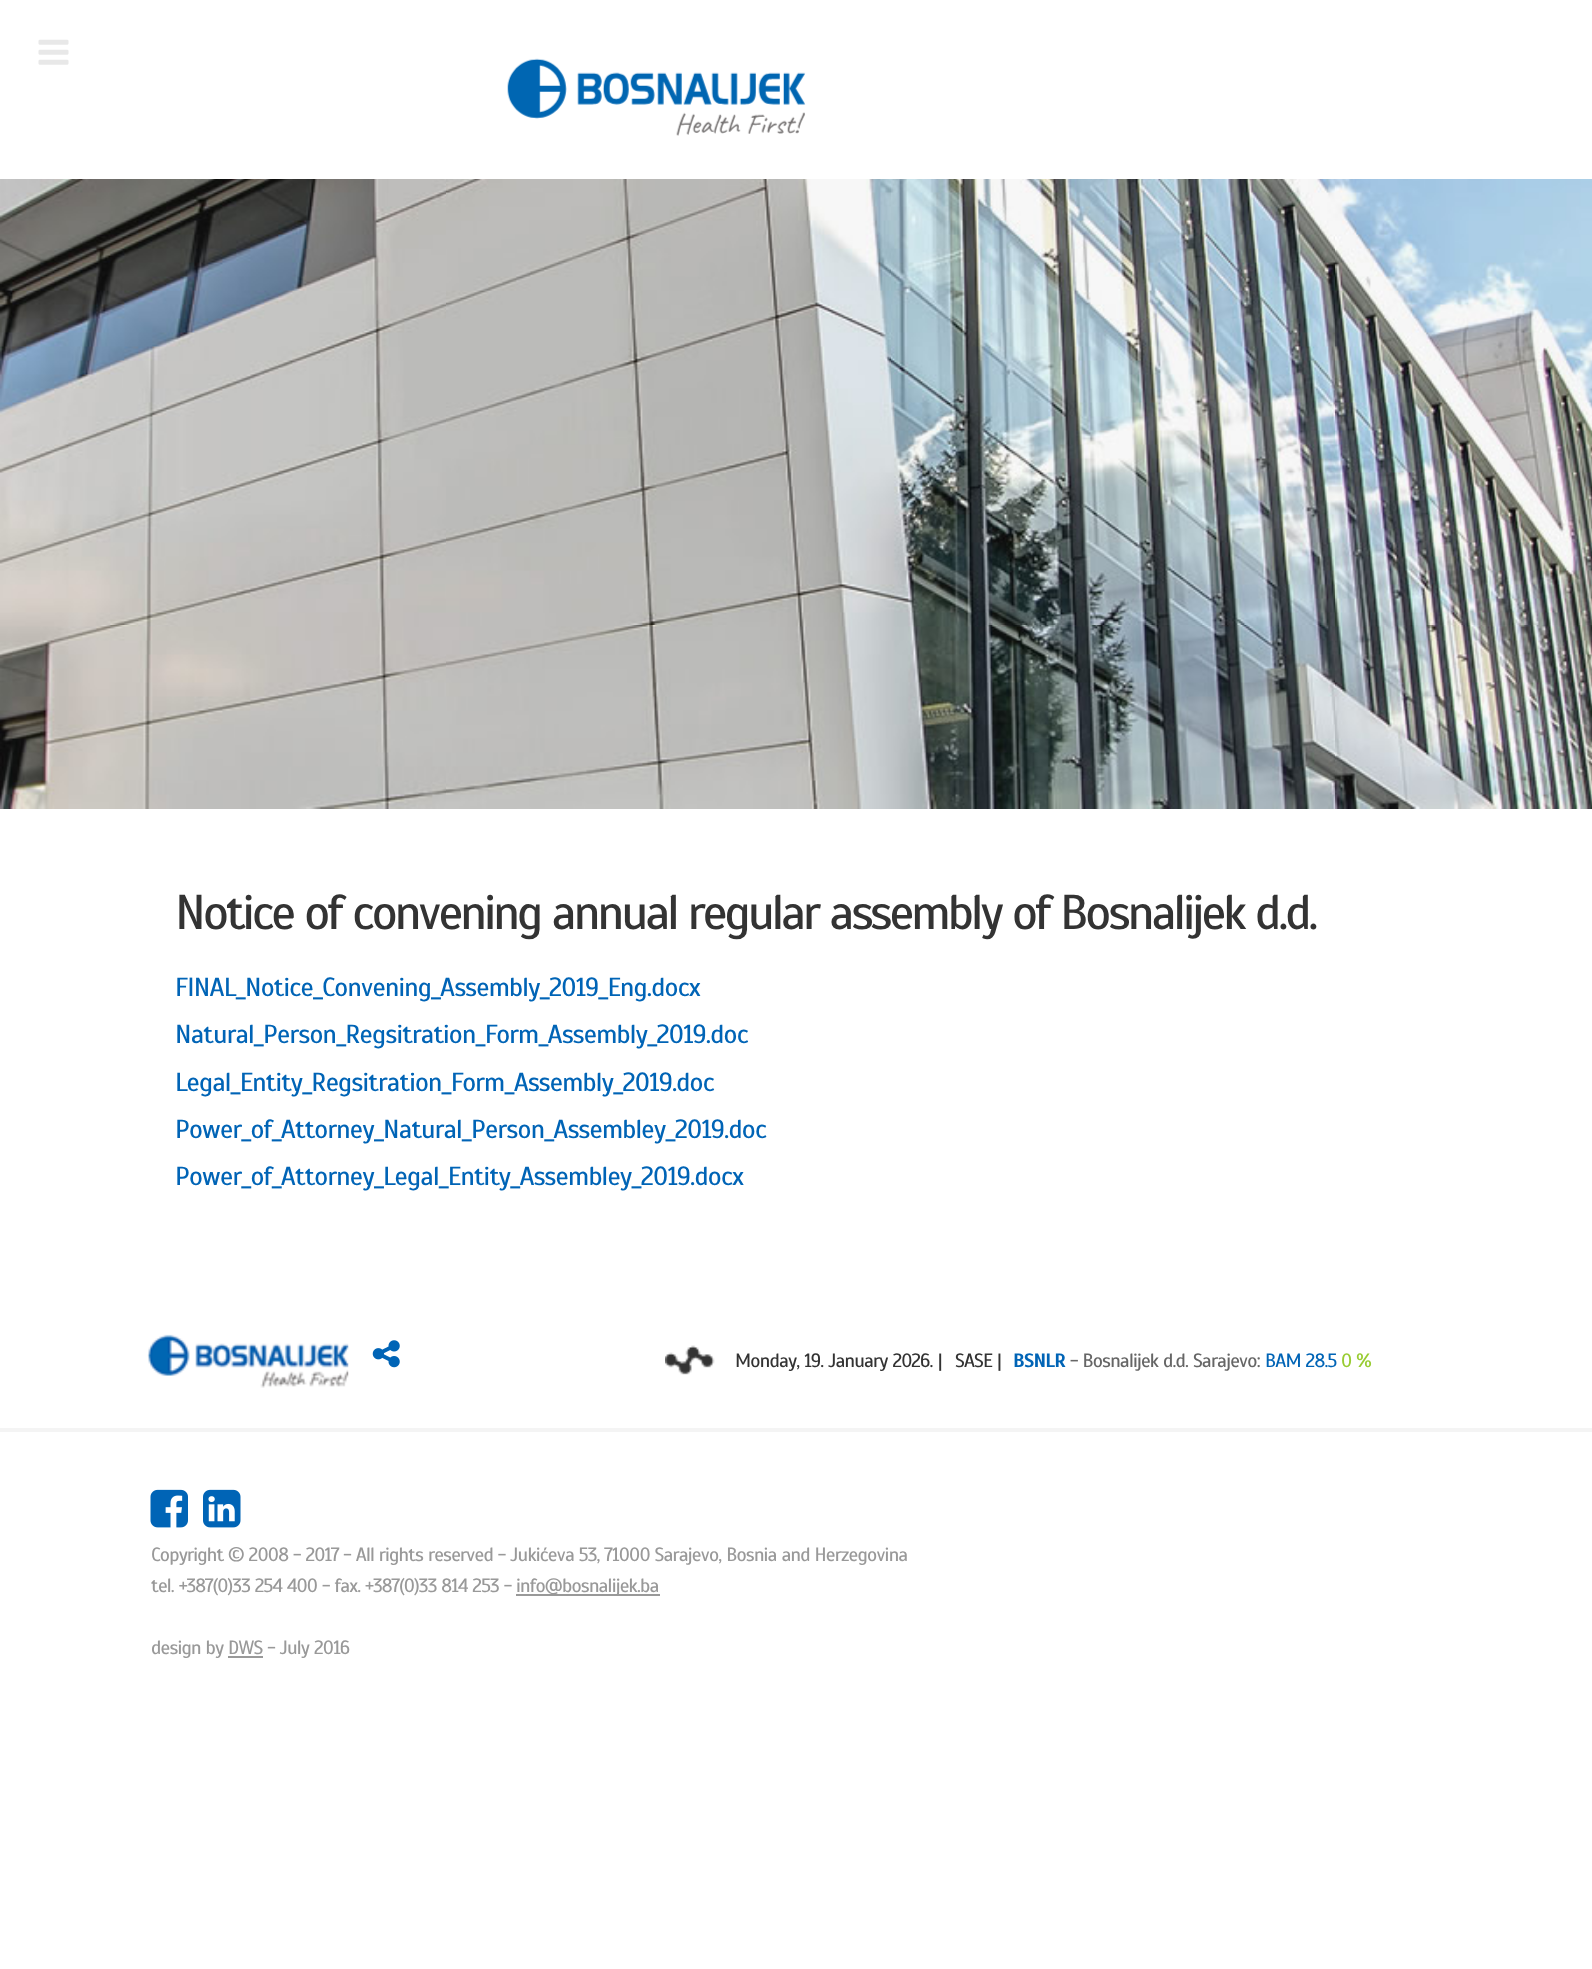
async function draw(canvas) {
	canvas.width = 1592;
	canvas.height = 1969;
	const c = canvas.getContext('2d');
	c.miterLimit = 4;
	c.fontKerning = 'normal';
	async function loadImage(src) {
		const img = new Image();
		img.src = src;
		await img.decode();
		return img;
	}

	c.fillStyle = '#fff';
	c.fillRect(0, 0, 1592, 1969);
	c.drawImage(await loadImage('img1.png'), 38, 39, 31, 26);
	c.drawImage(await loadImage('img2.png'), 507, 58, 299, 78);
	c.drawImage(await loadImage('img3.png'), 0, 179, 1592, 630);
	c.letterSpacing = '-2.95px';
	c.font = '49px Scada';
	c.fillStyle = '#333';
	c.fillText('Notice of convening annual regular assembly of Bosnalijek d.d.', 175, 929);
	c.letterSpacing = '-0.8px';
	c.font = '26.25px Scada';
	c.fillStyle = '#0064b6';
	for (const [text, x, y] of [
		['FINAL_Notice_Convening_Assembly_2019_Eng.docx', 175, 996],
		['Natural_Person_Regsitration_Form_Assembly_2019.doc', 175, 1043],
		['Legal_Entity_Regsitration_Form_Assembly_2019.doc', 175, 1091],
		['Power_of_Attorney_Natural_Person_Assembley_2019.doc', 175, 1138],
		['Power_of_Attorney_Legal_Entity_Assembley_2019.docx', 175, 1185],
	]) {
		c.fillText(text, x, y);
	}
	c.drawImage(await loadImage('img4.png'), 147, 1334, 202, 54);
	c.drawImage(await loadImage('img5.png'), 372, 1340, 28, 28);
	c.drawImage(await loadImage('img6.png'), 665, 1345, 50, 30);
	c.font = '19.25px Scada';
	c.fillStyle = '#333';
	c.fillText('Monday, 19. January 2026. |', 735, 1367);
	c.fillText('SASE |', 955, 1367);
	c.font = 'bold 19.25px Scada';
	c.fillStyle = '#0064b6';
	c.fillText('BSNLR', 1013, 1367);
	c.font = '19.25px Scada';
	c.fillStyle = '#666';
	c.fillText('- Bosnalijek d.d. Sarajevo:', 1070, 1367);
	c.fillStyle = '#0064b6';
	c.fillText('BAM 28.5', 1265, 1367);
	c.fillStyle = '#9c3';
	c.fillText('0 %', 1341, 1367);
	c.fillStyle = '#f4f4f4';
	c.fillRect(0, 1428, 1592, 4);
	c.drawImage(await loadImage('img7.png'), 150, 1489, 38, 39);
	c.drawImage(await loadImage('img8.png'), 203, 1489, 38, 39);
	c.fillStyle = '#999';
	c.fillText('Copyright © 2008 - 2017 - All rights reserved - Jukićeva 53, 71000 Sarajevo, Bosnia and Herzegovina', 151, 1561);
	c.fillText('tel. +387(0)33 254 400 - fax. +387(0)33 814 253 -', 151, 1592);
	c.fillRect(516, 1594, 144, 2);
	c.fillText('info@bosnalijek.ba', 516, 1592);
	c.fillText('design by DWS - July 2016', 151, 1654);
	c.fillRect(228, 1656, 35, 2);
}

draw(document.querySelector('canvas'));
